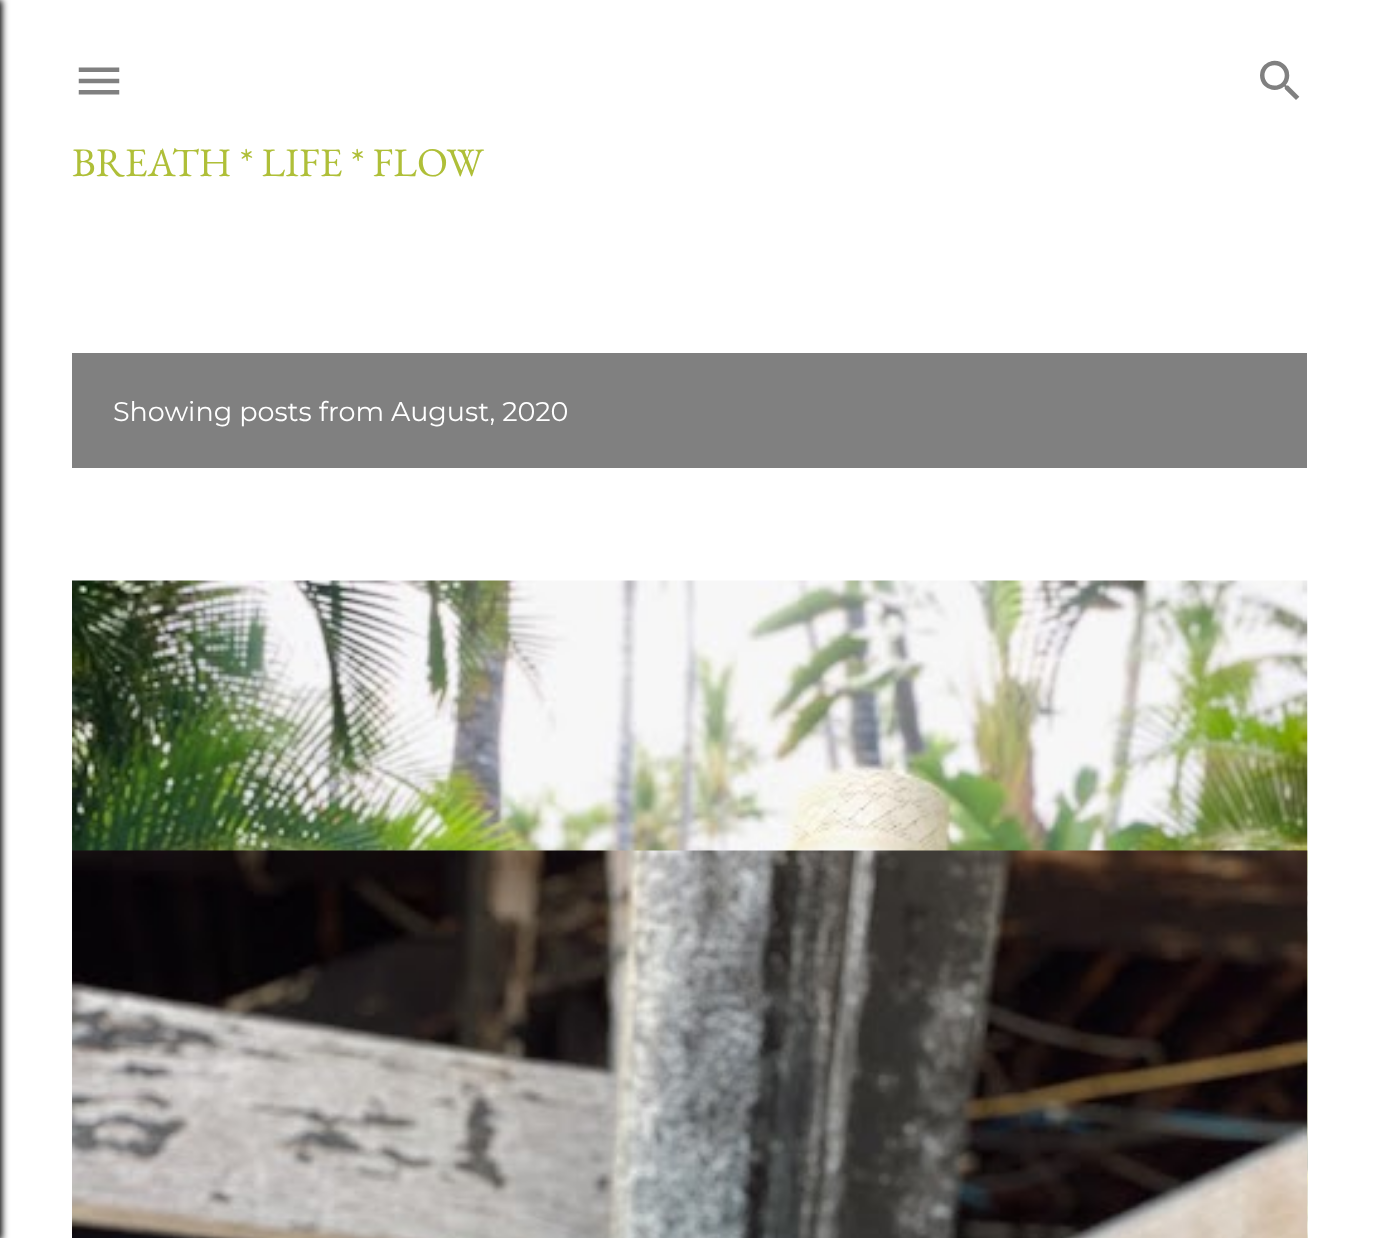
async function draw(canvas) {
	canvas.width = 1378;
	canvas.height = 1238;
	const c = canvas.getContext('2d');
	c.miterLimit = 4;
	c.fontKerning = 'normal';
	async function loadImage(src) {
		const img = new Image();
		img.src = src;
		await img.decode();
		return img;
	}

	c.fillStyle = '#fff';
	c.fillRect(0, 0, 1378, 1238);
	c.fillStyle = '#000';
	c.filter = 'blur(3.5px)';
	c.beginPath();
	c.rect(-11, 0, 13, 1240);
	c.fill();
	c.filter = 'none';
	c.drawImage(await loadImage('img1.png'), 78, 67, 42, 28);
	c.drawImage(await loadImage('img2.png'), 1260, 60, 40, 40);
	c.font = '40.5px EB Garamond';
	c.fillStyle = '#afbf38';
	c.fillText('BREATH * LIFE * FLOW', 72, 176);
	c.fillStyle = '#808080';
	c.fillRect(72, 353, 1235, 115);
	c.font = '27px Montserrat';
	c.fillStyle = '#fff';
	c.fillText('Showing posts from August, 2020', 113, 421);
	c.drawImage(await loadImage('img3.png'), 72, 580, 1236, 658);
	c.drawImage(await loadImage('img4.png'), 72, 850, 1236, 388);
}

draw(document.querySelector('canvas'));
